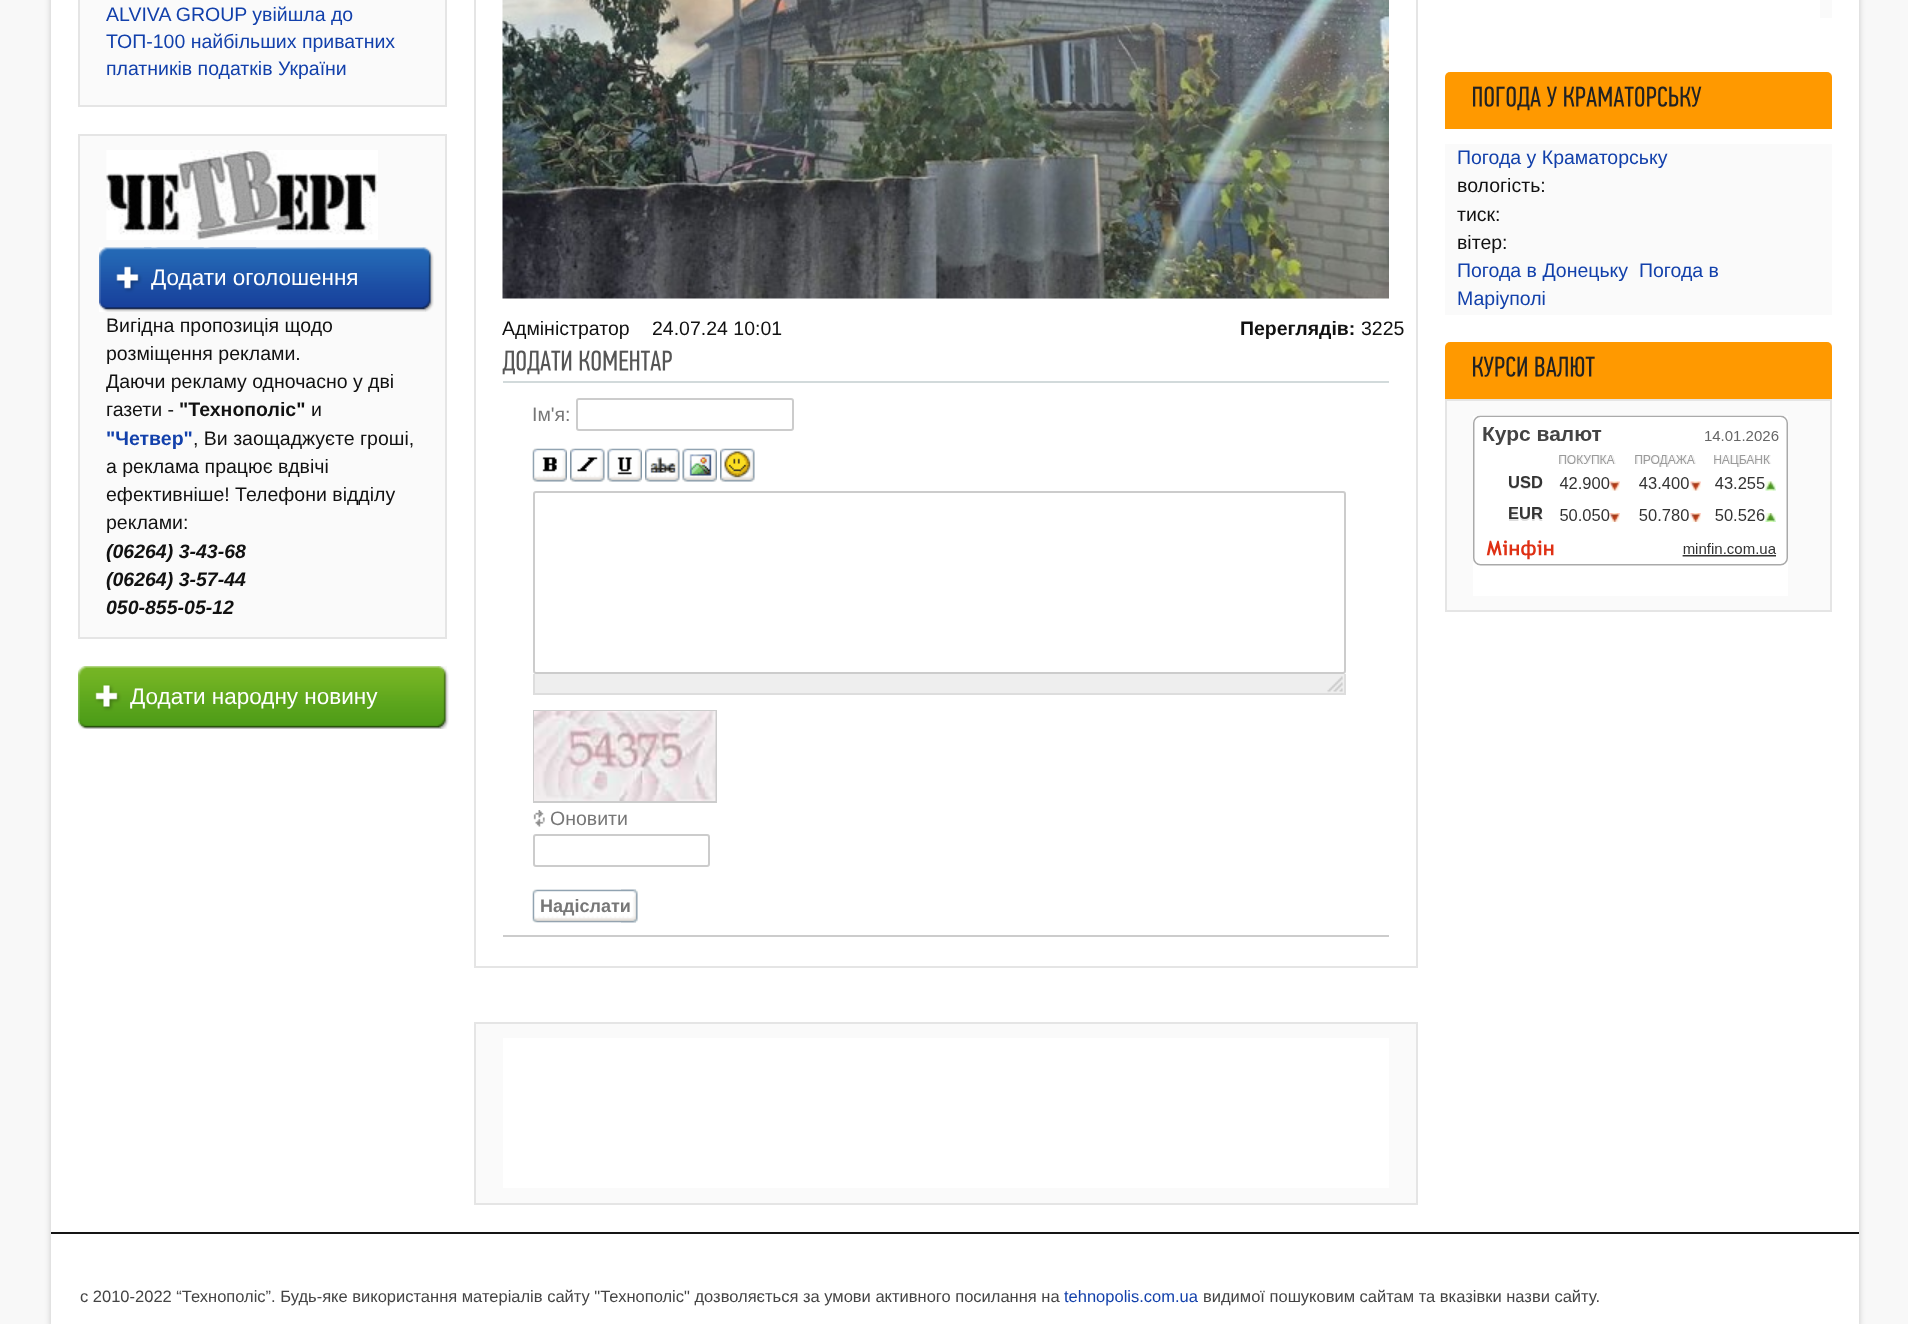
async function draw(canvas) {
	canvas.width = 1908;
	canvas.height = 1324;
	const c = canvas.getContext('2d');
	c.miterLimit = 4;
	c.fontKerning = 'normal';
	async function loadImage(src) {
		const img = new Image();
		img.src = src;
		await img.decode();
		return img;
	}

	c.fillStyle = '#f8f8f8';
	c.fillRect(0, 0, 1908, 1324);
	c.fillStyle = '#00000033';
	c.filter = 'blur(3px)';
	c.beginPath();
	c.rect(51, -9, 1808, 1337);
	c.fill();
	c.filter = 'none';
	c.fillStyle = '#fff';
	c.fillRect(51, 0, 1808, 1324);
	c.fillStyle = '#fafafa';
	c.beginPath();
	c.rect(79, -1, 367, 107);
	c.fill();
	c.strokeStyle = '#e5e5e5';
	c.lineWidth = 2;
	c.stroke();
	c.font = '19.5px Liberation Sans';
	c.fillStyle = '#1240ab';
	for (const [text, x, y] of [
		['ALVIVA GROUP увійшла до', 106, 21],
		['ТОП-100 найбільших приватних', 106, 48],
		['платників податків України', 106, 75],
	]) {
		c.fillText(text, x, y);
	}
	c.fillStyle = '#fafafa';
	c.beginPath();
	c.rect(79, 135, 367, 503);
	c.fill();
	c.stroke();
	c.drawImage(await loadImage('img1.png'), 106, 150, 272, 90);
	c.drawImage(await loadImage('img2.png'), 99, 247, 327, 65);
	c.drawImage(await loadImage('img3.png'), 144, 247, 290, 65);
	c.font = '22.5px Liberation Sans';
	c.fillStyle = '#fff';
	c.fillText('Додати оголошення', 151, 285);
	c.font = '19.5px Liberation Sans';
	c.fillStyle = '#111';
	for (const [text, x, y] of [
		['Вигідна пропозиція щодо', 106, 332],
		['розміщення реклами.', 106, 360],
		['Даючи рекламу одночасно у дві', 106, 388],
		['газети -', 106, 416],
	]) {
		c.fillText(text, x, y);
	}
	c.font = 'bold 19.5px Liberation Sans';
	c.fillText('"Технополіс"', 179, 416);
	c.font = '19.5px Liberation Sans';
	c.fillText('и', 311, 416);
	c.font = 'bold 19.5px Liberation Sans';
	c.fillStyle = '#1240ab';
	c.fillText('"Четвер"', 106, 445);
	c.font = '19.5px Liberation Sans';
	c.fillStyle = '#111';
	for (const [text, x, y] of [
		[', Ви заощаджуєте гроші,', 193, 445],
		['а реклама працює вдвічі', 106, 473],
		['ефективніше! Телефони відділу', 106, 501],
		['реклами:', 106, 529],
	]) {
		c.fillText(text, x, y);
	}
	c.font = 'italic bold 19.5px Liberation Sans';
	for (const [text, x, y] of [
		['(06264) 3-43-68', 106, 558],
		['(06264) 3-57-44', 106, 586],
		['050-855-05-12', 106, 614],
	]) {
		c.fillText(text, x, y);
	}
	c.fillStyle = '#fafafa';
	c.fillRect(441, 666, 6, 63);
	c.drawImage(await loadImage('img4.png'), 78, 666, 363, 63);
	c.drawImage(await loadImage('img5.png'), 130, 666, 319, 63);
	c.font = '22.5px Liberation Sans';
	c.fillStyle = '#fff';
	c.fillText('Додати народну новину', 130, 704);
	c.strokeRect(475, -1, 942, 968);
	c.drawImage(await loadImage('img6.png'), 502, 0, 887, 299);
	c.font = '19.5px Liberation Sans';
	c.fillStyle = '#111';
	c.fillText('Адміністратор', 502, 335);
	c.fillText('24.07.24 10:01', 652, 335);
	c.font = 'bold 19.5px Liberation Sans';
	c.fillText('Переглядів:', 1240, 335);
	c.font = '19.5px Liberation Sans';
	c.fillText('3225', 1361, 335);
	c.fillStyle = '#d2dadb';
	c.fillRect(503, 381, 886, 2);
	c.drawImage(await loadImage('img7.png'), 502, 350, 170, 25);
	c.fillStyle = '#777';
	c.fillText('Ім\'я:', 532, 421);
	c.beginPath();
	c.roundRect(577, 399, 216, 31, 2);
	c.strokeStyle = '#ccc';
	c.stroke();
	c.drawImage(await loadImage('img8.png'), 532, 448, 35, 34);
	c.drawImage(await loadImage('img9.png'), 570, 448, 35, 34);
	c.drawImage(await loadImage('img10.png'), 607, 448, 35, 34);
	c.drawImage(await loadImage('img11.png'), 645, 448, 35, 34);
	c.drawImage(await loadImage('img12.png'), 682, 448, 35, 34);
	c.drawImage(await loadImage('img13.png'), 720, 448, 35, 34);
	c.beginPath();
	c.roundRect(534, 492, 811, 181, 2);
	c.stroke();
	c.fillStyle = '#eee';
	c.fillRect(535, 674, 809, 19);
	c.drawImage(await loadImage('img14.png'), 1327, 676, 16, 17);
	for (const [x, y, w, h, color] of [
		[1344, 674, 2, 21, '#ddd'],
		[533, 693, 813, 2, '#ddd'],
		[533, 674, 2, 21, '#ddd'],
	]) {
		c.fillStyle = color;
		c.fillRect(x, y, w, h);
	}
	c.strokeRect(534, 711, 182, 91);
	c.drawImage(await loadImage('img15.png'), 534, 711, 182, 90);
	c.drawImage(await loadImage('img16.png'), 533, 810, 12, 17);
	c.fillStyle = '#777';
	c.fillText('Оновити', 550, 825);
	c.beginPath();
	c.roundRect(534, 835, 175, 31, 2);
	c.stroke();
	c.drawImage(await loadImage('img17.png'), 532, 889, 104, 34);
	c.drawImage(await loadImage('img18.png'), 621, 889, 17, 34);
	c.font = 'bold 18px Liberation Sans';
	c.fillText('Надіслати', 540, 912);
	c.fillStyle = '#ccc';
	c.fillRect(503, 935, 886, 2);
	c.fillStyle = '#fafafa';
	c.beginPath();
	c.rect(475, 1023, 942, 181);
	c.fill();
	c.strokeStyle = '#e5e5e5';
	c.stroke();
	c.fillStyle = '#fff';
	c.fillRect(503, 1038, 886, 150);
	c.fillStyle = '#fafafa';
	c.fillRect(1820, 0, 12, 18);
	c.fillStyle = '#f90';
	c.beginPath();
	c.roundRect(1445, 72, 387, 57, [5, 5, 0, 0]);
	c.fill();
	c.drawImage(await loadImage('img19.png'), 1473, 86, 229, 25);
	c.fillStyle = '#fafafa';
	c.fillRect(1445, 144, 387, 171);
	c.font = '19.5px Liberation Sans';
	c.fillStyle = '#1240ab';
	c.fillText('Погода у Краматорську', 1457, 164);
	c.fillStyle = '#111';
	for (const [text, x, y] of [
		['вологість:', 1457, 192],
		['тиск:', 1457, 221],
		['вітер:', 1457, 249],
	]) {
		c.fillText(text, x, y);
	}
	c.fillStyle = '#1240ab';
	for (const [text, x, y] of [
		['Погода в Донецьку', 1457, 277],
		['Погода в', 1639, 277],
		['Маріуполі', 1457, 305],
	]) {
		c.fillText(text, x, y);
	}
	c.fillStyle = '#f90';
	c.beginPath();
	c.roundRect(1445, 342, 387, 57, [5, 5, 0, 0]);
	c.fill();
	c.drawImage(await loadImage('img20.png'), 1473, 356, 122, 21);
	c.fillStyle = '#fafafa';
	c.beginPath();
	c.rect(1446, 400, 385, 211);
	c.fill();
	c.stroke();
	c.fillStyle = '#fff';
	c.fillRect(1473, 416, 315, 180);
	c.drawImage(await loadImage('img21.png'), 1473, 415, 315, 151);
	c.fillStyle = '#151515';
	c.fillRect(51, 1232, 1808, 2);
	c.font = '16.5px Liberation Sans';
	c.fillStyle = '#444';
	c.fillText('c 2010-2022 “Технополіс”. Будь-яке використання матеріалів сайту "Технополіс" дозволяється за умови активного посилання на', 80, 1302);
	c.fillStyle = '#1240ab';
	c.fillText('tehnopolis.com.ua', 1064, 1302);
	c.fillStyle = '#444';
	c.fillText('видимої пошуковим сайтам та вказівки назви сайту.', 1203, 1302);
}

draw(document.querySelector('canvas'));
